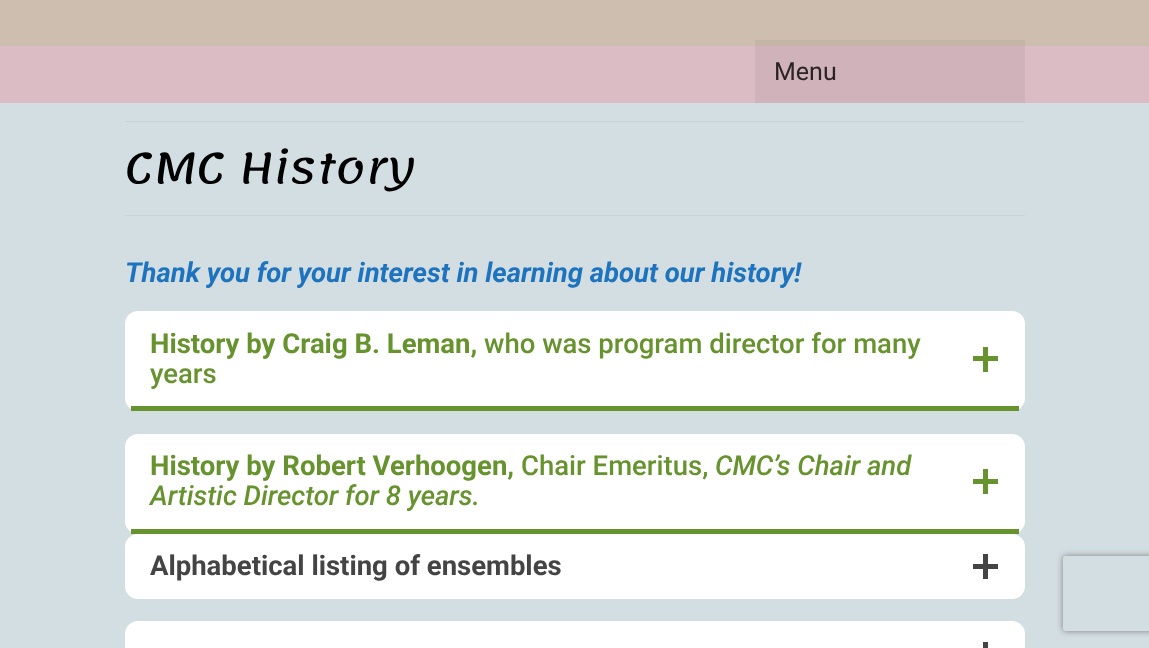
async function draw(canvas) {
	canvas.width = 1149;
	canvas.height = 648;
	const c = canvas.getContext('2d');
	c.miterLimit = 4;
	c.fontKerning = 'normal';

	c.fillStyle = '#dbbcc4';
	c.fillRect(0, 0, 1149, 648);
	for (const [x, y, w, h, color] of [
		[755, 46, 270, 57, '#d0b3ba'],
		[0, 0, 1149, 46, '#cebeaf'],
		[755, 40, 270, 6, '#c4b5a6'],
	]) {
		c.fillStyle = color;
		c.fillRect(x, y, w, h);
	}
	c.font = '25px Roboto';
	c.fillStyle = '#2a2425';
	c.fillText('Menu', 774, 80);
	for (const [x, y, w, h, color] of [
		[0, 103, 1149, 545, '#d3dee2'],
		[125, 121, 900, 1, '#c8d3d7'],
		[125, 215, 900, 1, '#c8d3d7'],
	]) {
		c.fillStyle = color;
		c.fillRect(x, y, w, h);
	}
	c.font = '42.5px Lemonada';
	c.fillStyle = '#000';
	c.fillText('CMC History', 125, 183);
	c.font = 'italic bold 27.5px Roboto';
	c.fillStyle = '#1e73be';
	c.fillText('Thank you for your interest in learning about our history!', 125, 282);
	c.fillStyle = '#fff';
	c.beginPath();
	c.roundRect(125, 311, 900, 100, 13);
	c.fill();
	c.fillStyle = '#66932d';
	c.fillRect(131, 406, 888, 5);
	c.font = 'bold 27.5px Roboto';
	c.fillText('History by Craig B. Leman,', 150, 353);
	c.font = '500 27.5px Roboto';
	c.fillText('who was program director for many', 484, 353);
	c.fillText('years', 150, 383);
	c.fillRect(983, 347, 5, 25);
	c.fillRect(973, 356, 25, 5);
	c.fillStyle = '#fff';
	c.beginPath();
	c.roundRect(125, 434, 900, 100, 13);
	c.fill();
	c.fillStyle = '#66932d';
	c.fillRect(131, 529, 888, 5);
	c.font = 'bold 27.5px Roboto';
	c.fillText('History by Robert Verhoogen,', 150, 475);
	c.font = '500 27.5px Roboto';
	c.fillText('Chair Emeritus,', 521, 475);
	c.font = 'italic 500 27.5px Roboto';
	c.fillText('CMC’s Chair and', 715, 475);
	c.fillText('Artistic Director for 8 years.', 150, 505);
	c.fillRect(983, 469, 5, 25);
	c.fillRect(973, 479, 25, 5);
	c.fillStyle = '#fff';
	c.beginPath();
	c.roundRect(125, 534, 900, 65, 13);
	c.fill();
	c.font = 'bold 27.5px Roboto';
	c.fillStyle = '#444';
	c.fillText('Alphabetical listing of ensembles', 150, 575);
	c.fillRect(983, 554, 5, 25);
	c.fillRect(973, 564, 25, 5);
	c.fillStyle = '#fff';
	c.beginPath();
	c.roundRect(125, 621, 900, 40, 13);
	c.fill();
	c.fillStyle = '#444';
	c.fillRect(983, 642, 5, 6);
	c.save();
	c.beginPath();
	c.moveTo(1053, 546);
	c.lineTo(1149, 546);
	c.lineTo(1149, 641);
	c.lineTo(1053, 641);
	c.closePath();
	c.moveTo(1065.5, 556);
	c.lineTo(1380.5, 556);
	c.bezierCurveTo(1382, 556, 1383, 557, 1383, 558.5);
	c.lineTo(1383, 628.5);
	c.bezierCurveTo(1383, 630, 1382, 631, 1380.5, 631);
	c.lineTo(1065.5, 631);
	c.bezierCurveTo(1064, 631, 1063, 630, 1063, 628.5);
	c.lineTo(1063, 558.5);
	c.bezierCurveTo(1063, 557, 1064, 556, 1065.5, 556);
	c.closePath();
	c.clip('evenodd');
	c.fillStyle = '#808080';
	c.filter = 'blur(3px)';
	c.beginPath();
	c.roundRect(1063, 556, 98, 75, 2.5);
	c.fill();
	c.filter = 'none';
	c.restore();
}

draw(document.querySelector('canvas'));
